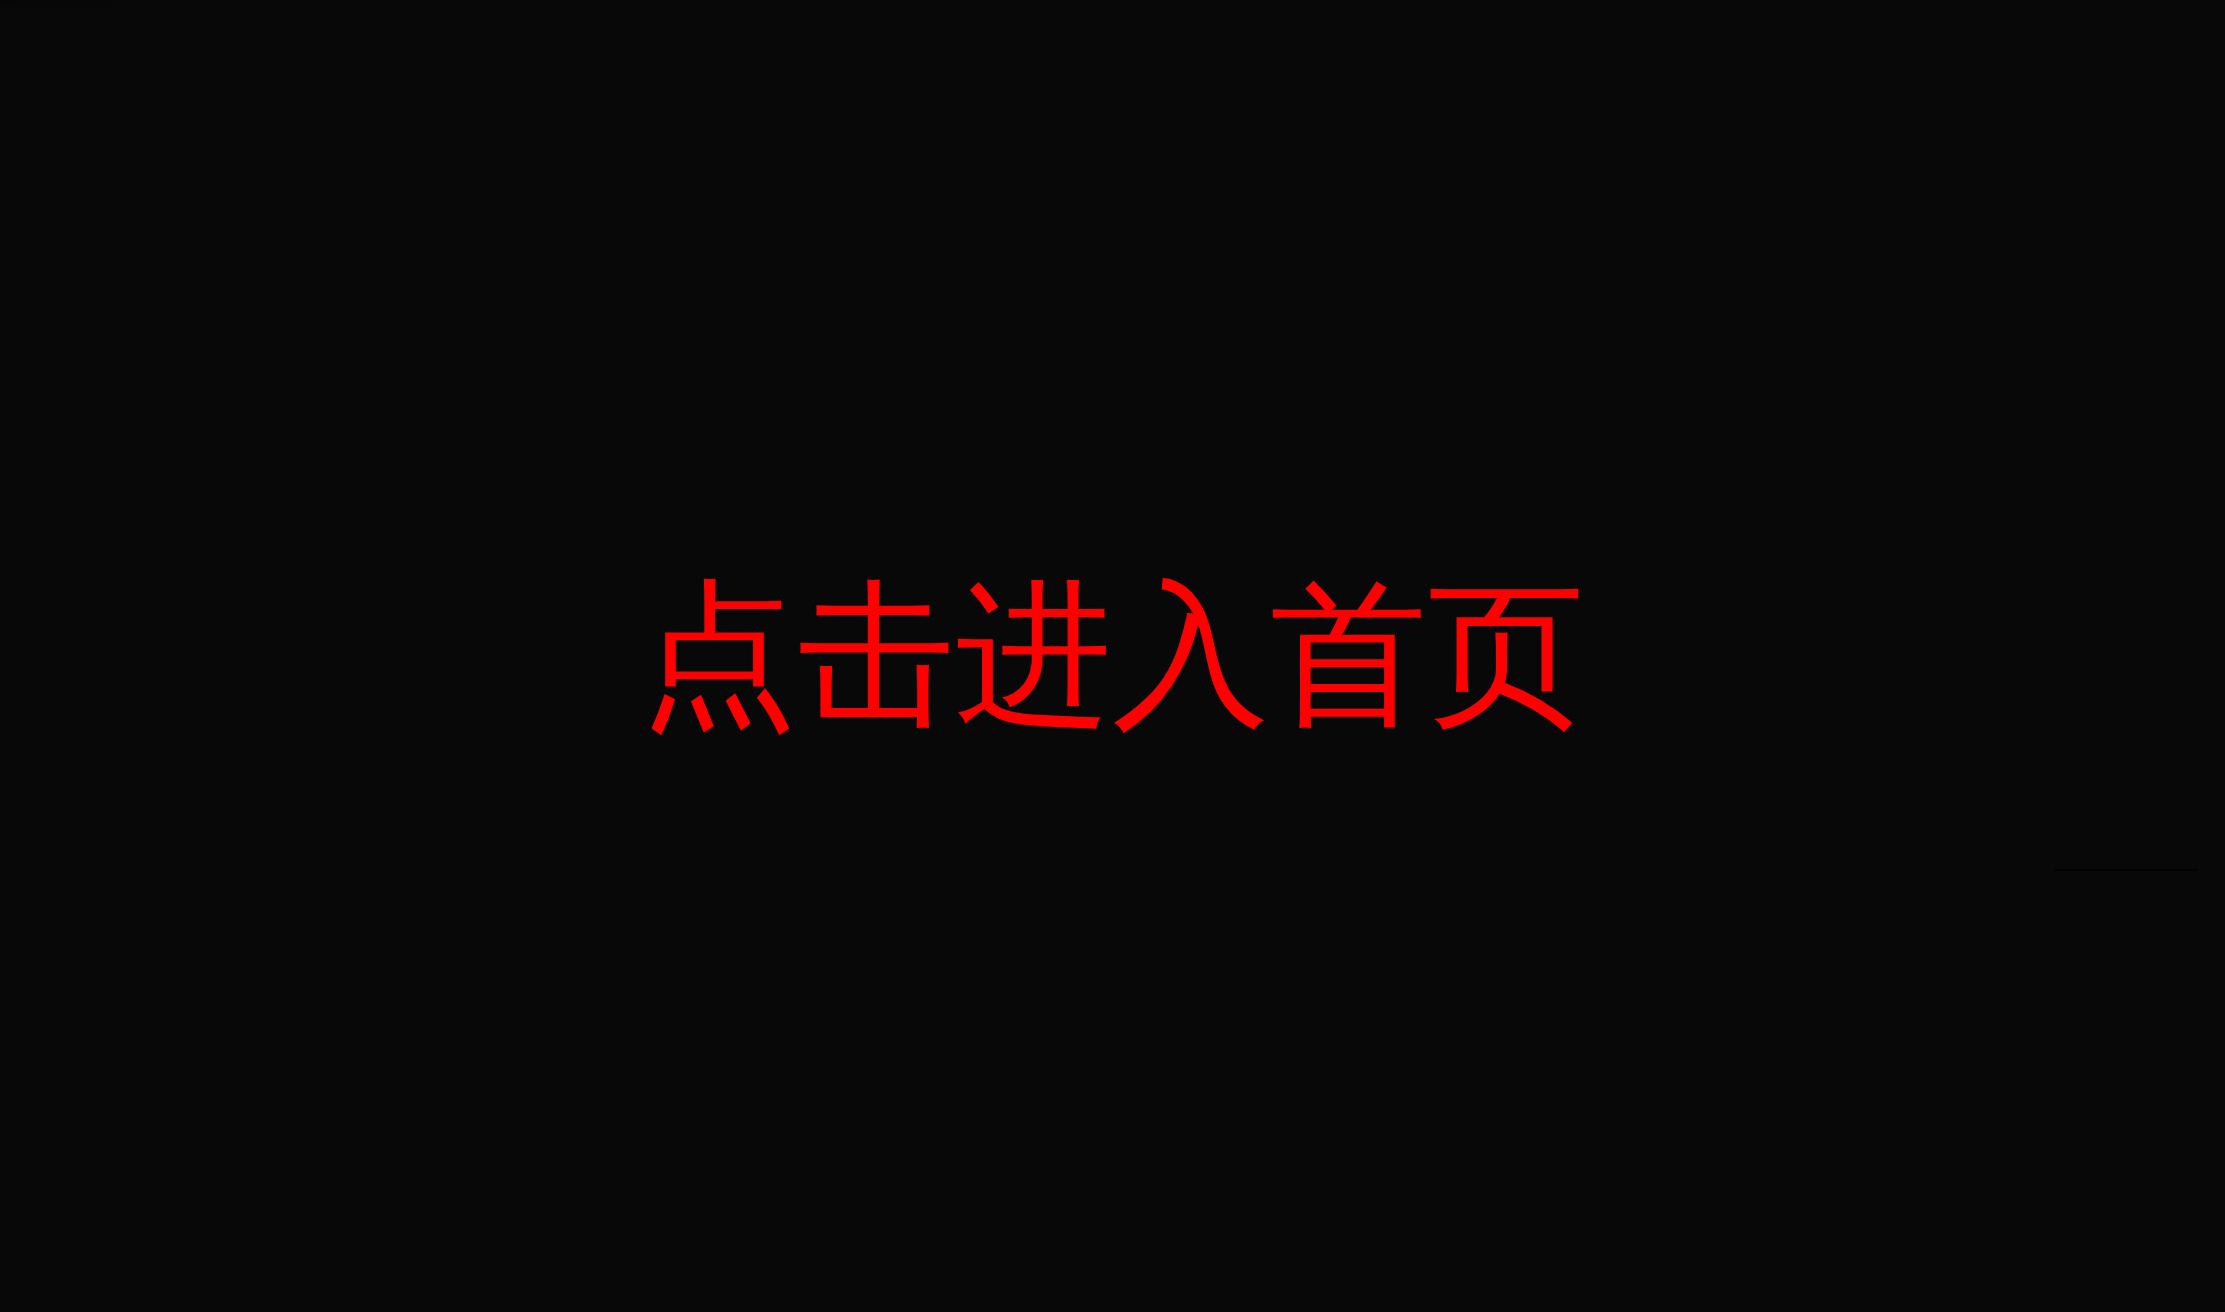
async function draw(canvas) {
	canvas.width = 2225;
	canvas.height = 1312;
	const c = canvas.getContext('2d');
	c.miterLimit = 4;
	c.fontKerning = 'normal';
	async function loadImage(src) {
		const img = new Image();
		img.src = src;
		await img.decode();
		return img;
	}

	c.fillStyle = '#080808';
	c.fillRect(0, 0, 2225, 1312);
	c.drawImage(await loadImage('img1.png'), 0, 0, 113, 7);
	c.font = '500 157.5px WenQuanYi Zen Hei';
	c.fillStyle = '#f00';
	c.fillText('点击进入首页', 640, 709);
	c.fillStyle = '#000007';
	c.fillRect(2054, 869, 144, 2);
}

draw(document.querySelector('canvas'));
